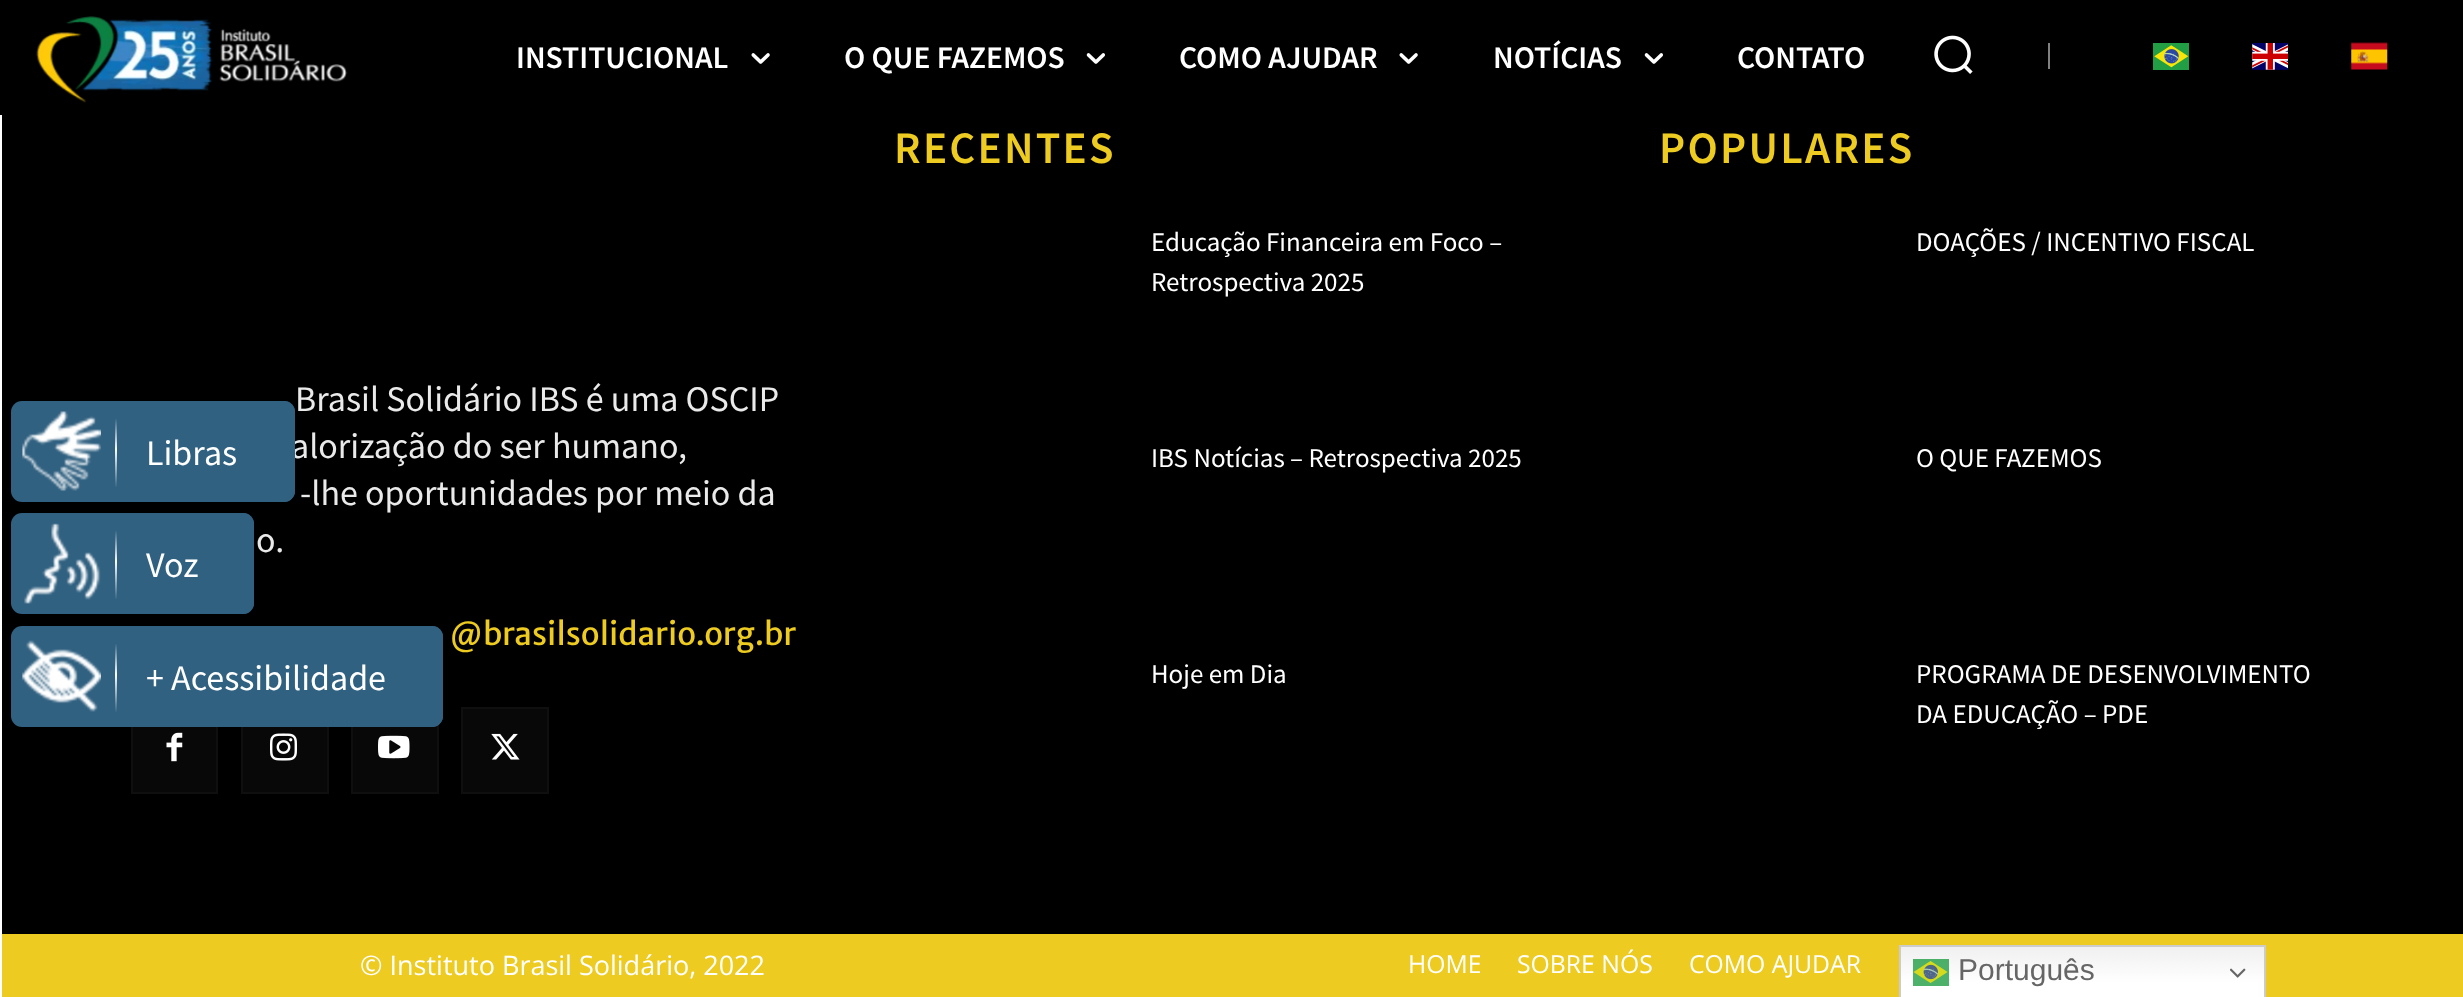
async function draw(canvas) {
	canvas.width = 2463;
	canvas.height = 997;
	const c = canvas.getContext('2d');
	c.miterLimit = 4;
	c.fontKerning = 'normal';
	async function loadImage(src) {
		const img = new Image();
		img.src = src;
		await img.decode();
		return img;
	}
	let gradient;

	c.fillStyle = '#fff';
	c.fillRect(0, 0, 2463, 997);
	c.fillStyle = '#000';
	c.fillRect(0, 0, 2463, 115);
	c.drawImage(await loadImage('img1.png'), 36, 16, 312, 87);
	c.font = '600 31.5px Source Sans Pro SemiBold';
	c.fillStyle = '#fff';
	c.fillText('INSTITUCIONAL', 516, 68);
	c.drawImage(await loadImage('img2.png'), 751, 53, 19, 11);
	c.fillText('O QUE FAZEMOS', 844, 68);
	c.drawImage(await loadImage('img3.png'), 1086, 53, 19, 11);
	c.fillText('COMO AJUDAR', 1179, 68);
	c.drawImage(await loadImage('img2.png'), 1399, 53, 19, 11);
	c.fillText('NOTÍCIAS', 1493, 68);
	c.drawImage(await loadImage('img3.png'), 1644, 53, 19, 11);
	c.fillText('CONTATO', 1737, 68);
	c.drawImage(await loadImage('img4.png'), 1934, 35, 39, 39);
	c.fillStyle = '#808080';
	c.fillRect(2048, 43, 2, 26);
	c.drawImage(await loadImage('img5.png'), 2153, 43, 36, 27);
	c.drawImage(await loadImage('img6.png'), 2252, 43, 36, 27);
	c.drawImage(await loadImage('img7.png'), 2351, 42, 37, 28);
	c.fillStyle = '#000';
	c.fillRect(2, 115, 2461, 819);
	c.font = '36px Source Sans Pro';
	c.fillStyle = '#eaeaea';
	for (const [text, x, y] of [
		['Brasil Solidário IBS é uma OSCIP', 295, 411],
		['alorização do ser humano,', 291, 458],
		['-lhe oportunidades por meio da', 300, 505],
		['o.', 256, 552],
	]) {
		c.fillText(text, x, y);
	}
	c.font = '31.5px Merriweather Sans';
	c.fillStyle = '#edcb21';
	c.fillText('@brasilsolidario.org.br', 450, 645);
	c.fillStyle = '#080808';
	c.fillRect(133, 727, 83, 65);
	c.strokeStyle = '#0f0f0f';
	c.lineWidth = 2;
	c.strokeRect(132, 708, 85, 85);
	c.drawImage(await loadImage('img8.png'), 166, 732, 17, 30);
	c.fillRect(243, 727, 84, 65);
	c.strokeRect(242, 708, 86, 85);
	c.drawImage(await loadImage('img9.png'), 270, 733, 27, 28);
	c.fillRect(353, 725, 84, 67);
	c.strokeRect(352, 708, 86, 85);
	c.drawImage(await loadImage('img10.png'), 378, 735, 32, 24);
	c.beginPath();
	c.rect(462, 708, 86, 85);
	c.fill();
	c.stroke();
	c.drawImage(await loadImage('img11.png'), 491, 733, 29, 27);
	c.letterSpacing = '2.25px';
	c.font = '600 45px Source Sans Pro SemiBold';
	c.fillStyle = '#edcb21';
	c.fillText('RECENTES', 894, 163);
	c.letterSpacing = '0px';
	c.font = '27px Source Sans Pro';
	c.fillStyle = '#fff';
	for (const [text, x, y] of [
		['Educação Financeira em Foco –', 1151, 251],
		['Retrospectiva 2025', 1151, 291],
		['IBS Notícias – Retrospectiva 2025', 1151, 467],
		['Hoje em Dia', 1151, 683],
	]) {
		c.fillText(text, x, y);
	}
	c.letterSpacing = '2.25px';
	c.font = '600 45px Source Sans Pro SemiBold';
	c.fillStyle = '#edcb21';
	c.fillText('POPULARES', 1659, 163);
	c.letterSpacing = '0px';
	c.font = '27px Source Sans Pro';
	c.fillStyle = '#fff';
	for (const [text, x, y] of [
		['DOAÇÕES / INCENTIVO FISCAL', 1916, 251],
		['O QUE FAZEMOS', 1916, 467],
		['PROGRAMA DE DESENVOLVIMENTO', 1916, 683],
		['DA EDUCAÇÃO – PDE', 1916, 723],
	]) {
		c.fillText(text, x, y);
	}
	c.fillStyle = '#edcb21';
	c.fillRect(2, 934, 2461, 63);
	c.font = '27px Open Sans';
	c.fillStyle = '#fff';
	c.fillText('© Instituto Brasil Solidário, 2022', 360, 975);
	c.font = '24.75px Open Sans';
	for (const [text, x, y] of [
		['HOME', 1408, 973],
		['SOBRE NÓS', 1517, 973],
		['COMO AJUDAR', 1689, 973],
	]) {
		c.fillText(text, x, y);
	}
	c.fillStyle = '#316181';
	c.beginPath();
	c.roundRect(11, 401, 284, 101, 11);
	c.fill();
	c.drawImage(await loadImage('img12.png'), 22, 411, 79, 80);
	c.beginPath();
	c.roundRect(101, 401, 194, 101, [0, 11, 11, 0]);
	c.fill();
	gradient = c.createLinearGradient(116, 502, 116, 401);
	gradient.addColorStop(0.14, '#316181');
	gradient.addColorStop(0.52, '#fff');
	gradient.addColorStop(0.83, '#316181');
	c.fillStyle = gradient;
	c.fillRect(115, 419, 2, 68);
	c.font = '36px Source Sans Pro';
	c.fillStyle = '#fff';
	c.fillText('Libras', 146, 465);
	c.fillStyle = '#316181';
	c.beginPath();
	c.roundRect(11, 513, 243, 101, 11);
	c.fill();
	c.drawImage(await loadImage('img13.png'), 24, 523, 77, 81);
	c.beginPath();
	c.roundRect(101, 513, 153, 101, [0, 11, 11, 0]);
	c.fill();
	gradient = c.createLinearGradient(116, 614, 116, 513);
	gradient.addColorStop(0.14, '#316181');
	gradient.addColorStop(0.52, '#fff');
	gradient.addColorStop(0.83, '#316181');
	c.fillStyle = gradient;
	c.fillRect(115, 531, 2, 68);
	c.fillStyle = '#fff';
	c.fillText('Voz', 146, 577);
	c.fillStyle = '#316181';
	c.beginPath();
	c.roundRect(11, 626, 432, 101, 11);
	c.fill();
	c.drawImage(await loadImage('img14.png'), 22, 640, 79, 72);
	c.beginPath();
	c.roundRect(101, 626, 342, 101, [0, 11, 11, 0]);
	c.fill();
	gradient = c.createLinearGradient(116, 727, 116, 626);
	gradient.addColorStop(0.14, '#316181');
	gradient.addColorStop(0.52, '#fff');
	gradient.addColorStop(0.83, '#316181');
	c.fillStyle = gradient;
	c.fillRect(115, 644, 2, 68);
	c.fillStyle = '#fff';
	c.fillText('+ Acessibilidade', 146, 690);
	gradient = c.createLinearGradient(2082, 945, 2082, 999);
	gradient.addColorStop(0, '#efefef');
	gradient.addColorStop(0.7, '#fff');
	c.fillStyle = gradient;
	c.fillRect(1901, 947, 363, 50);
	c.strokeStyle = '#ccc';
	c.strokeRect(1900, 946, 365, 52);
	c.drawImage(await loadImage('img15.png'), 1913, 959, 36, 27);
	c.font = '30px Liberation Sans';
	c.fillStyle = '#666';
	c.fillText('Português', 1958, 980);
	c.drawImage(await loadImage('img16.png'), 2230, 968, 16, 10);
}

draw(document.querySelector('canvas'));
